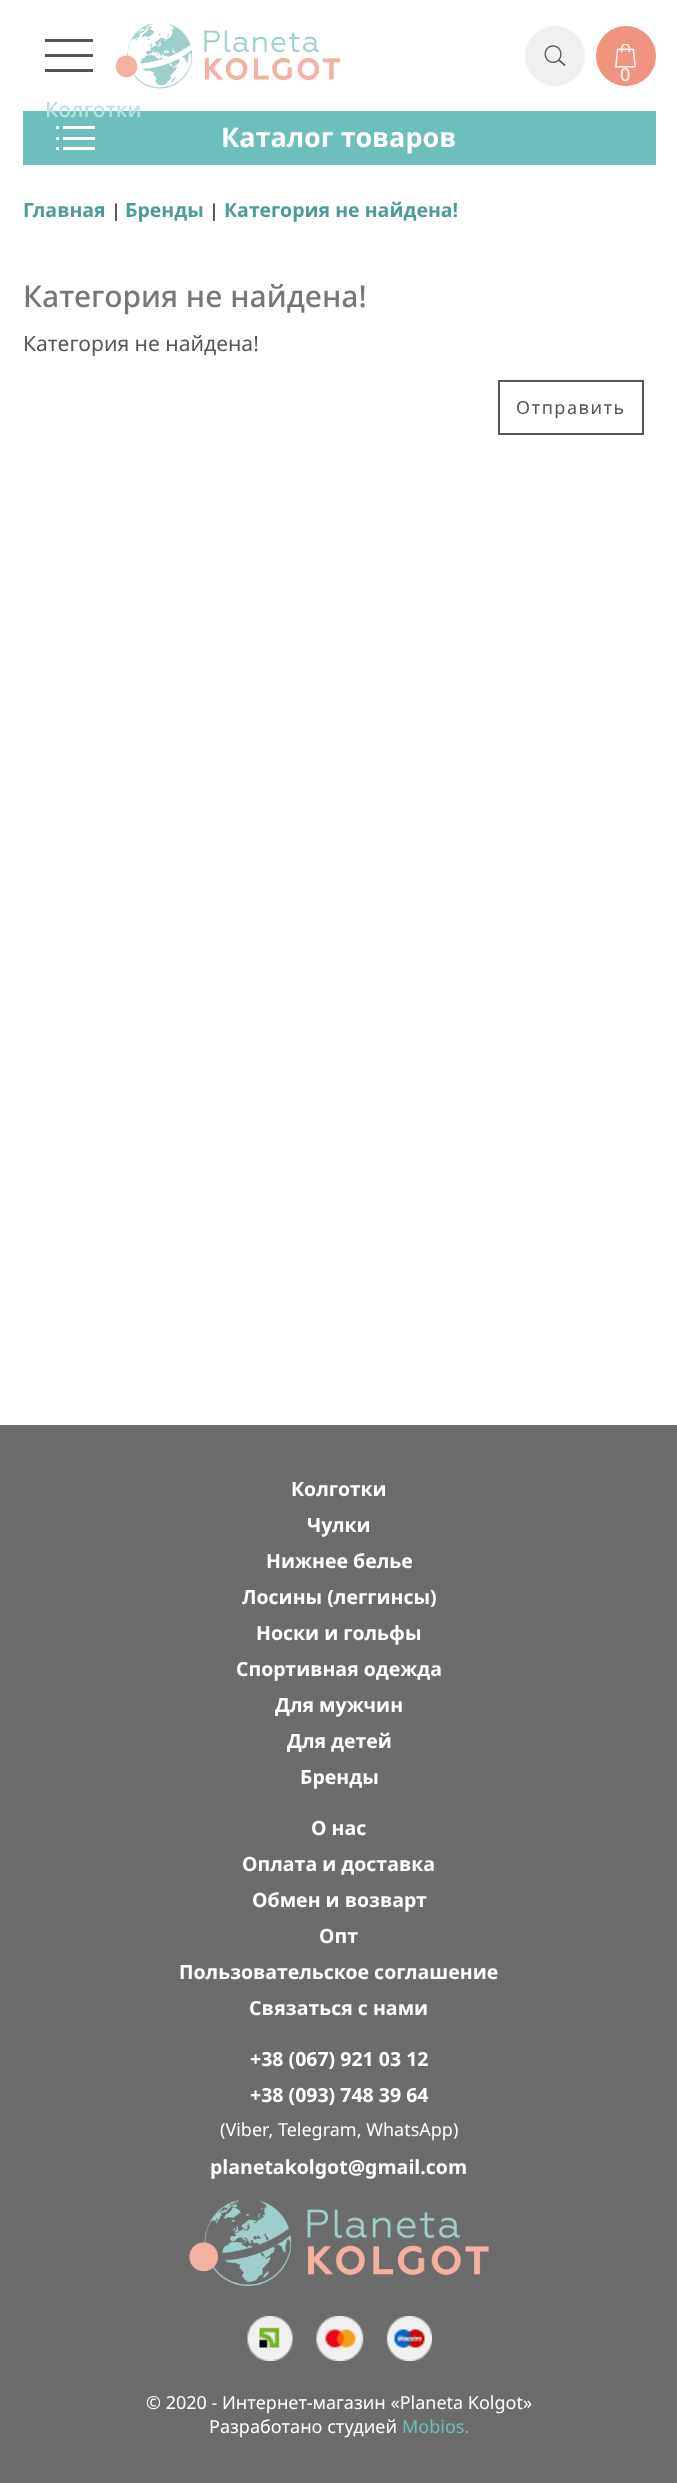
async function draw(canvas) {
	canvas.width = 677;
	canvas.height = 2483;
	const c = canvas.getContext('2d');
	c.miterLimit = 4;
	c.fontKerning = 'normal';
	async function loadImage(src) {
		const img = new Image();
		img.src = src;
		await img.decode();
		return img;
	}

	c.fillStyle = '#fff';
	c.fillRect(0, 0, 677, 2483);
	for (const [x, y, w, h, color] of [
		[45, 39, 48, 3, '#555'],
		[45, 54, 48, 3, '#555'],
		[45, 69, 48, 3, '#555'],
	]) {
		c.fillStyle = color;
		c.fillRect(x, y, w, h);
	}
	c.drawImage(await loadImage('img1.png'), 115, 22, 226, 67);
	c.fillStyle = '#f0f0f0';
	c.beginPath();
	c.arc(555, 56, 30, 0, 2 * Math.PI);
	c.fill();
	c.drawImage(await loadImage('img2.png'), 544, 45, 22, 21);
	c.fillStyle = '#f1947f';
	c.beginPath();
	c.arc(626, 56, 30, 0, 2 * Math.PI);
	c.fill();
	c.drawImage(await loadImage('img3.png'), 615, 44, 21, 24);
	c.font = '18px Noto Sans';
	c.fillStyle = '#fff';
	c.fillText('0', 620, 81);
	c.fillStyle = '#6cbfba';
	c.fillRect(23, 111, 633, 54);
	c.font = '500 21px Noto Sans';
	c.fillStyle = '#bbe1df';
	c.fillText('Колготки', 45, 117);
	for (const [x, y, w, h, color] of [
		[63, 126, 32, 3, '#fff'],
		[63, 137, 32, 3, '#fff'],
		[63, 147, 32, 3, '#fff'],
		[56, 126, 3, 3, '#fff'],
		[56, 137, 3, 3, '#fff'],
		[56, 147, 3, 3, '#fff'],
	]) {
		c.fillStyle = color;
		c.fillRect(x, y, w, h);
	}
	c.font = 'bold 27px Noto Sans';
	c.fillText('Каталог товаров', 221, 147);
	c.font = 'bold 19.5px Noto Sans';
	c.fillStyle = '#4b9c97';
	c.fillText('Главная', 23, 217);
	c.font = 'bold 18px Noto Sans';
	c.fillStyle = '#555';
	c.fillText('|', 111, 217);
	c.font = 'bold 19.5px Noto Sans';
	c.fillStyle = '#4b9c97';
	c.fillText('Бренды', 125, 217);
	c.font = 'bold 18px Noto Sans';
	c.fillStyle = '#555';
	c.fillText('|', 209, 217);
	c.font = 'bold 19.5px Noto Sans';
	c.fillStyle = '#4b9c97';
	c.fillText('Категория не найдена!', 224, 217);
	c.font = '500 30px Noto Sans';
	c.fillStyle = '#777';
	c.fillText('Категория не найдена!', 23, 307);
	c.font = '21px Noto Sans';
	c.fillStyle = '#555';
	c.fillText('Категория не найдена!', 23, 351);
	c.strokeStyle = '#555';
	c.lineWidth = 2;
	c.strokeRect(499, 381, 144, 53);
	c.letterSpacing = '1.5px';
	c.font = '18px Noto Sans';
	c.fillText('Отправить', 516, 414);
	c.fillStyle = '#6c6c6c';
	c.fillRect(0, 1425, 677, 1058);
	c.letterSpacing = '0px';
	c.font = 'bold 19.5px Noto Sans';
	c.fillStyle = '#fff';
	for (const [text, x, y] of [
		['Колготки', 291, 1496],
		['Чулки', 307, 1532],
		['Нижнее белье', 266, 1568],
		['Лосины (леггинсы)', 242, 1604],
		['Носки и гольфы', 256, 1640],
		['Спортивная одежда', 236, 1676],
		['Для мужчин', 275, 1712],
		['Для детей', 287, 1748],
		['Бренды', 300, 1784],
		['О нас', 311, 1835],
		['Оплата и доставка', 242, 1871],
		['Обмен и возварт', 252, 1907],
		['Опт', 319, 1943],
		['Пользовательское соглашение', 179, 1979],
		['Связаться с нами', 249, 2015],
		['+38 (067) 921 03 12', 250, 2066],
		['+38 (093) 748 39 64', 250, 2102],
	]) {
		c.fillText(text, x, y);
	}
	c.font = '18px Noto Sans';
	c.fillText('(Viber, Telegram, WhatsApp)', 220, 2136);
	c.font = 'bold 19.5px Noto Sans';
	c.fillText('planetakolgot@gmail.com', 210, 2174);
	c.drawImage(await loadImage('img4.png'), 189, 2199, 300, 87);
	c.drawImage(await loadImage('img5.png'), 247, 2316, 185, 45);
	c.font = '18px Noto Sans';
	c.fillText('© 2020 - Интернет-магазин «Planeta Kolgot»', 146, 2409);
	c.fillText('Разработано студией', 209, 2433);
	c.fillStyle = '#6cbfba';
	c.fillText('Mobios.', 402, 2433);
}

draw(document.querySelector('canvas'));
